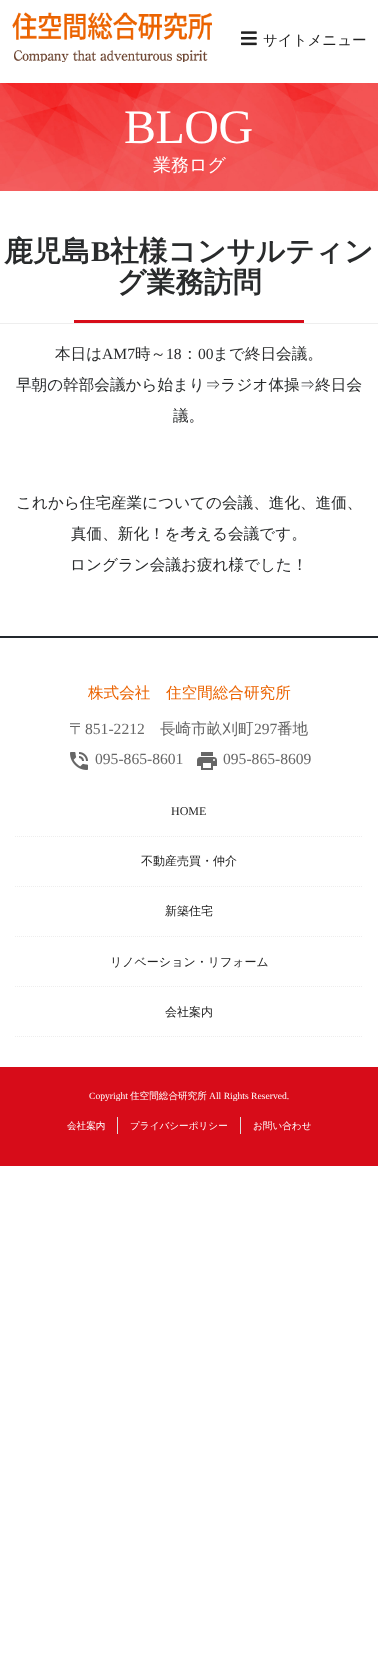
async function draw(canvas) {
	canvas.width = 378;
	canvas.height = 1660;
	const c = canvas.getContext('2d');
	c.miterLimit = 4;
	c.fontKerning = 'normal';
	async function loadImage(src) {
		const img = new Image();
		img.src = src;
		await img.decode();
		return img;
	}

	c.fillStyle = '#fff';
	c.fillRect(0, 0, 378, 1660);
	c.drawImage(await loadImage('img1.png'), 12, 12, 200, 50);
	c.drawImage(await loadImage('img2.png'), 241, 31, 16, 15);
	c.font = '500 14.5px WenQuanYi Zen Hei';
	c.fillStyle = '#212121';
	c.fillText('サイトメニュー', 263, 45);
	c.drawImage(await loadImage('img3.png'), 0, 83, 378, 108);
	c.letterSpacing = '-0.5px';
	c.font = '48px Liberation Serif';
	c.fillStyle = '#fff';
	c.fillText('BLOG', 124, 143);
	c.letterSpacing = '0px';
	c.font = '500 18px WenQuanYi Zen Hei';
	c.fillText('業務ログ', 153, 171);
	c.fillStyle = '#eee';
	c.fillRect(0, 323, 378, 1);
	c.font = 'bold 28.75px WenQuanYi Zen Hei';
	c.fillStyle = '#292b2c';
	c.fillText('鹿児島', 4, 261);
	c.font = 'bold 28.75px Liberation Serif';
	c.fillText('B', 91, 261);
	c.font = 'bold 28.75px WenQuanYi Zen Hei';
	c.fillText('社様コンサルティン', 110, 261);
	c.fillText('グ業務訪問', 117, 292);
	c.fillStyle = '#d70c19';
	c.fillRect(74, 320, 230, 3);
	c.font = '500 15.6px WenQuanYi Zen Hei';
	c.fillStyle = '#292b2c';
	c.fillText('本日は', 55, 359);
	c.font = '15.6px Liberation Serif';
	c.fillText('AM7', 102, 359);
	c.font = '500 15.6px WenQuanYi Zen Hei';
	c.fillText('時～', 135, 359);
	c.font = '15.6px Liberation Serif';
	c.fillText('18', 166, 359);
	c.font = '500 15.6px WenQuanYi Zen Hei';
	c.fillText('：', 182, 359);
	c.font = '15.6px Liberation Serif';
	c.fillText('00', 198, 359);
	c.font = '500 15.6px WenQuanYi Zen Hei';
	for (const [text, x, y] of [
		['まで終日会議。', 213, 359],
		['早朝の幹部会議から始まり⇒ラジオ体操⇒終日会', 16, 390],
		['議。', 173, 421],
		['これから住宅産業についての会議、進化、進価、', 16, 508],
		['真価、新化！を考える会議です。', 71, 539],
		['ロングラン会議お疲れ様でした！', 70, 570],
	]) {
		c.fillText(text, x, y);
	}
	c.fillStyle = '#23282d';
	c.fillRect(0, 636, 378, 2);
	c.fillStyle = '#eb6300';
	c.fillText('株式会社　住空間総合研究所', 88, 698);
	c.fillStyle = '#666';
	c.fillText('〒', 69, 734);
	c.font = '15.6px Liberation Serif';
	c.fillText('851-2212', 85, 734);
	c.font = '500 15.6px WenQuanYi Zen Hei';
	c.fillText('長崎市畝刈町', 160, 734);
	c.font = '15.6px Liberation Serif';
	c.fillText('297', 254, 734);
	c.font = '500 15.6px WenQuanYi Zen Hei';
	c.fillText('番地', 277, 734);
	c.drawImage(await loadImage('img4.png'), 70, 752, 18, 18);
	c.font = '15.6px Liberation Serif';
	c.fillText('095-865-8601', 95, 764);
	c.drawImage(await loadImage('img5.png'), 197, 752, 20, 18);
	c.fillText('095-865-8609', 223, 764);
	c.beginPath();
	c.moveTo(15, 836.5);
	c.lineTo(363, 836.5);
	c.strokeStyle = '#eee';
	c.setLineDash([1, 1]);
	c.stroke();
	c.font = '12px Liberation Serif';
	c.fillStyle = '#212121';
	c.fillText('HOME', 171, 815);
	c.beginPath();
	c.moveTo(15, 886.5);
	c.lineTo(363, 886.5);
	c.stroke();
	c.font = '500 12px WenQuanYi Zen Hei';
	c.fillText('不動産売買・仲介', 141, 865);
	c.beginPath();
	c.moveTo(15, 936.5);
	c.lineTo(363, 936.5);
	c.stroke();
	c.fillText('新築住宅', 165, 915);
	c.beginPath();
	c.moveTo(15, 986.5);
	c.lineTo(363, 986.5);
	c.stroke();
	c.fillText('リノベーション・リフォーム', 110, 966);
	c.beginPath();
	c.moveTo(15, 1036.5);
	c.lineTo(363, 1036.5);
	c.stroke();
	c.fillText('会社案内', 165, 1016);
	c.fillStyle = '#d70c19';
	c.fillRect(0, 1067, 378, 99);
	c.font = '9.6px Liberation Serif';
	c.fillStyle = '#fff';
	c.fillText('Copyright', 89, 1099);
	c.font = '500 9.6px WenQuanYi Zen Hei';
	c.fillText('住空間総合研究所', 130, 1099);
	c.font = '9.6px Liberation Serif';
	c.fillText('All Rights Reserved.', 209, 1099);
	c.font = '500 9.6px WenQuanYi Zen Hei';
	c.fillText('会社案内', 67, 1129);
	c.fillStyle = '#ddd';
	c.fillRect(117, 1117, 1, 17);
	c.fillStyle = '#fff';
	c.fillText('プライバシーポリシー', 130, 1129);
	c.fillStyle = '#ddd';
	c.fillRect(240, 1117, 1, 17);
	c.fillStyle = '#fff';
	c.fillText('お問い合わせ', 253, 1129);
}

draw(document.querySelector('canvas'));
